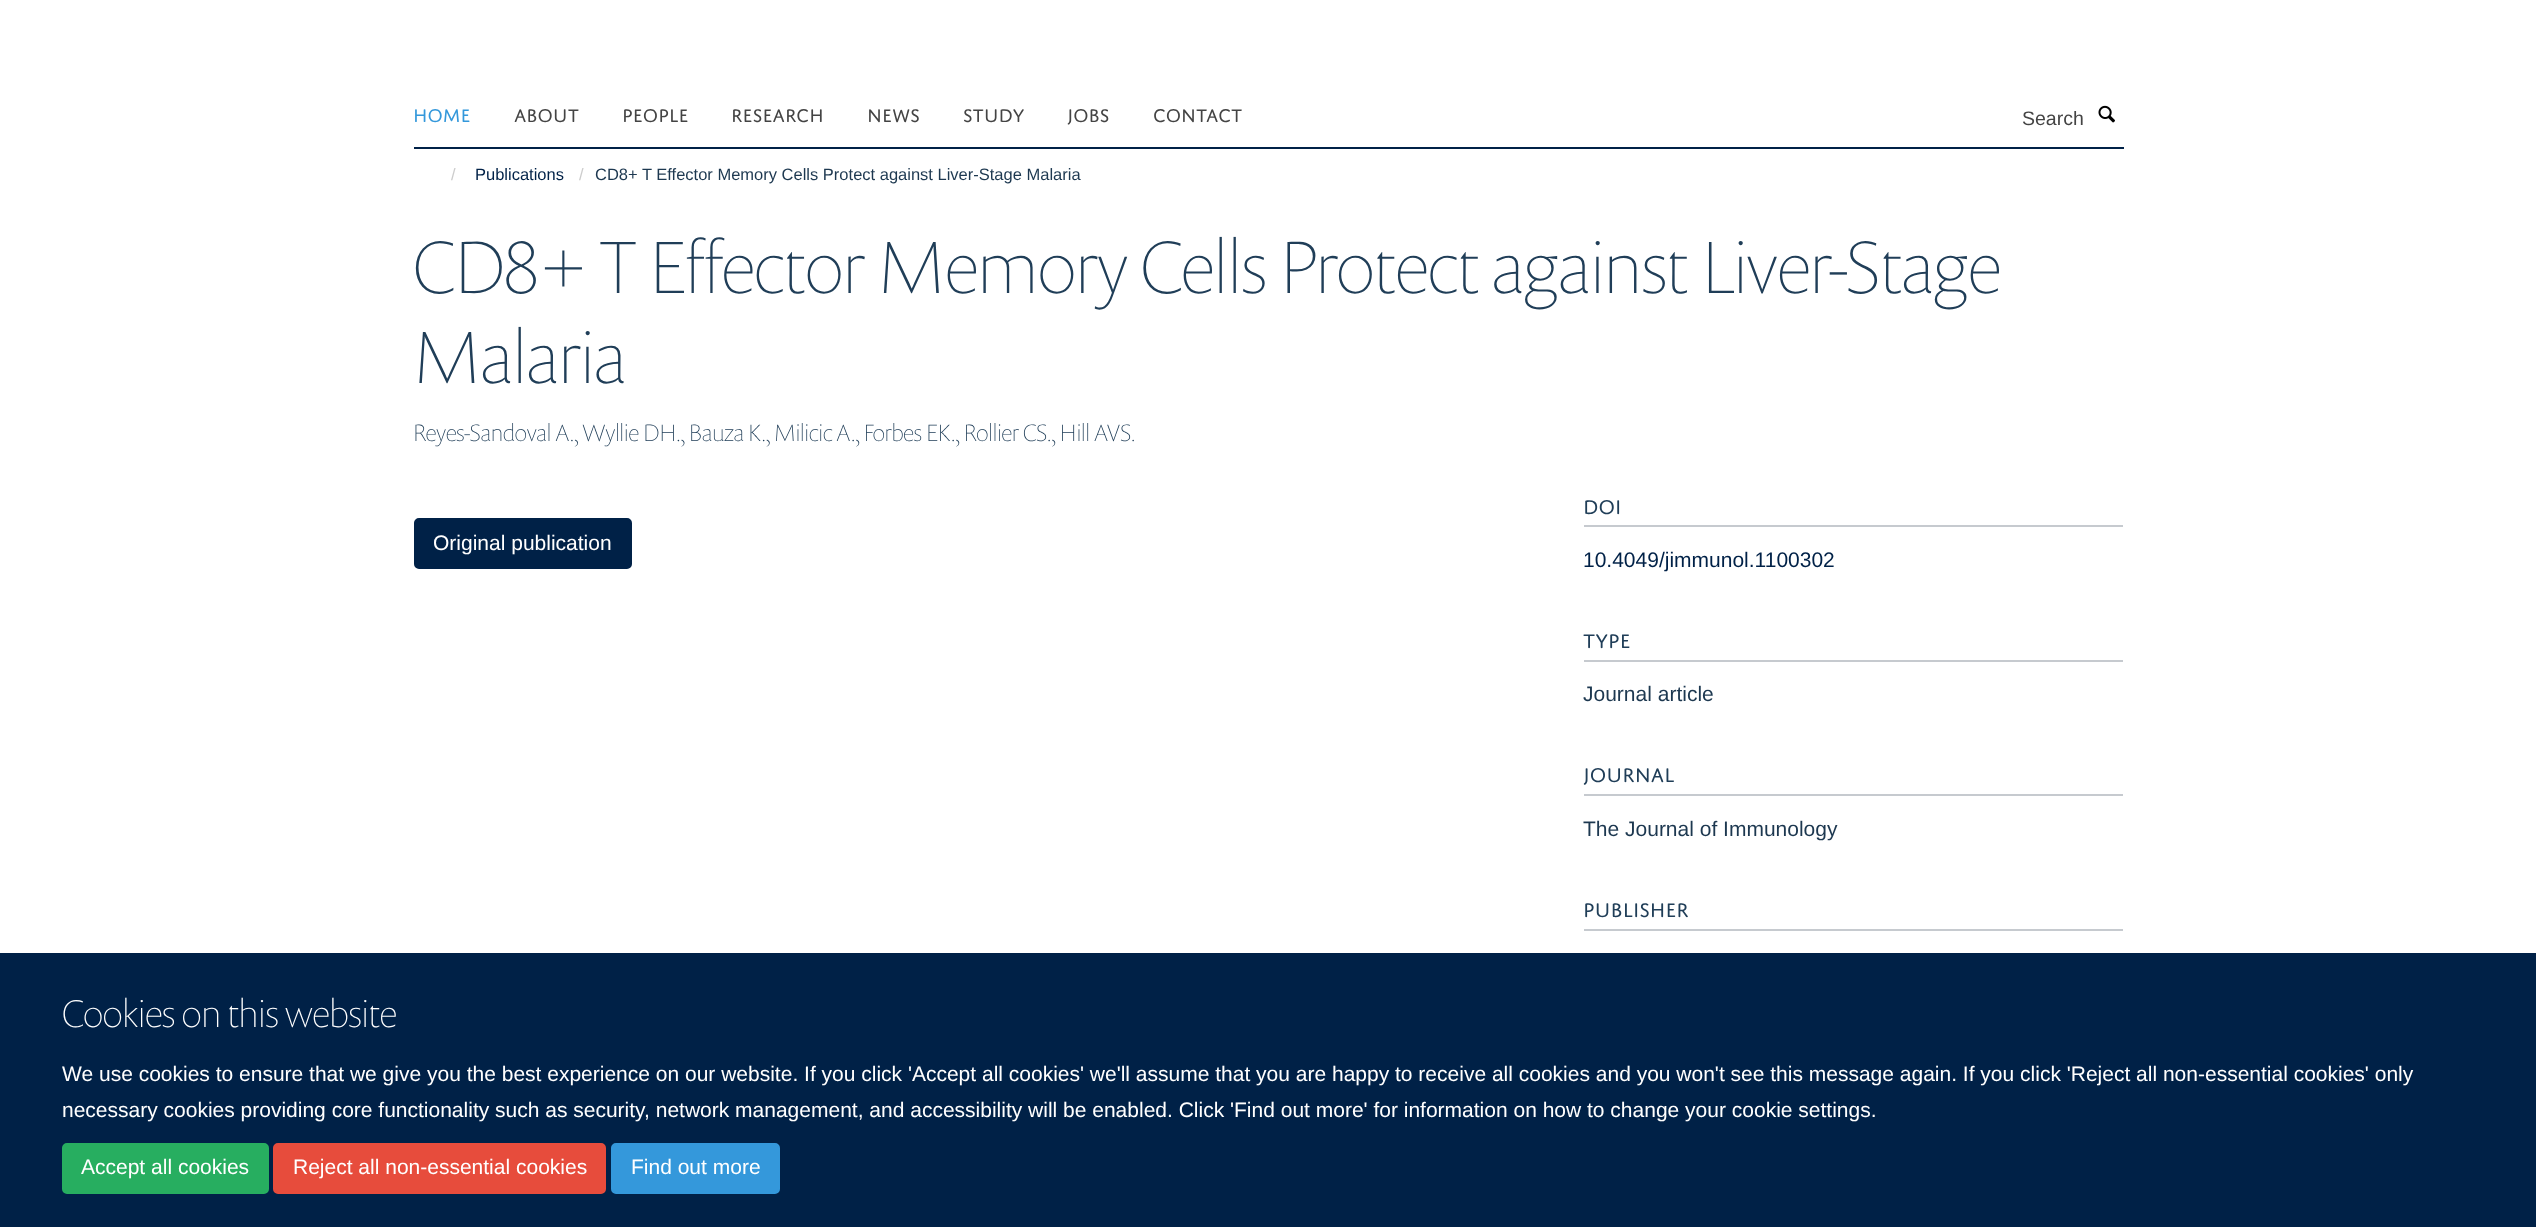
async function draw(canvas) {
	canvas.width = 2536;
	canvas.height = 1227;
	const c = canvas.getContext('2d');
	c.miterLimit = 4;
	c.fontKerning = 'normal';
	async function loadImage(src) {
		const img = new Image();
		img.src = src;
		await img.decode();
		return img;
	}

	c.fillStyle = '#fff';
	c.fillRect(0, 0, 2536, 1227);
	c.fillStyle = '#002147';
	c.fillRect(414, 147, 1710, 2);
	c.font = '19.5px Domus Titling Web';
	c.fillStyle = '#3498db';
	c.fillText('HOME', 413, 122);
	c.fillStyle = '#444';
	for (const [text, x, y] of [
		['ABOUT', 514, 122],
		['PEOPLE', 622, 122],
		['RESEARCH', 731, 122],
		['NEWS', 867, 122],
		['STUDY', 963, 122],
		['JOBS', 1067, 122],
		['CONTACT', 1153, 122],
	]) {
		c.fillText(text, x, y);
	}
	c.font = '19.5px Liberation Sans';
	c.fillText('Search', 2022, 125);
	c.drawImage(await loadImage('img1.png'), 2098, 105, 17, 18);
	c.font = '16.5px Liberation Sans';
	c.fillStyle = '#ccc';
	c.fillText('/', 451, 180);
	c.fillStyle = '#002147';
	c.fillText('Publications', 475, 180);
	c.fillStyle = '#ccc';
	c.fillText('/', 579, 180);
	c.fillStyle = '#1d3850';
	c.fillText('CD8+ T Effector Memory Cells Protect against Liver-Stage Malaria', 595, 180);
	c.font = '100 75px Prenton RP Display';
	c.fillStyle = '#203e58';
	c.fillText('CD8+ T Effector Memory Cells Protect against Liver-Stage', 413, 293);
	c.fillText('Malaria', 413, 383);
	c.font = '100 24px Prenton RP Display';
	c.fillText('Reyes-Sandoval A., Wyllie DH., Bauza K., Milicic A., Forbes EK., Rollier CS., Hill AVS.', 413, 441);
	c.fillStyle = '#002147';
	c.beginPath();
	c.roundRect(415, 519, 216, 49, 4);
	c.fill();
	c.strokeStyle = '#002147';
	c.lineWidth = 2;
	c.stroke();
	c.font = '21px Liberation Sans';
	c.fillStyle = '#fff';
	c.fillText('Original publication', 433, 550);
	c.fillStyle = '#c6cacf';
	c.fillRect(1584, 525, 539, 2);
	c.font = '21px Domus Titling Web';
	c.fillStyle = '#203e58';
	c.fillText('DOI', 1583, 514);
	c.font = '21px Liberation Sans';
	c.fillStyle = '#002147';
	c.fillText('10.4049/jimmunol.1100302', 1583, 567);
	c.fillStyle = '#c6cacf';
	c.fillRect(1584, 660, 539, 2);
	c.font = '21px Domus Titling Web';
	c.fillStyle = '#203e58';
	c.fillText('TYPE', 1583, 648);
	c.font = '21px Liberation Sans';
	c.fillStyle = '#1d3850';
	c.fillText('Journal article', 1583, 701);
	c.fillStyle = '#c6cacf';
	c.fillRect(1584, 794, 539, 2);
	c.font = '21px Domus Titling Web';
	c.fillStyle = '#203e58';
	c.fillText('JOURNAL', 1583, 782);
	c.font = '21px Liberation Sans';
	c.fillStyle = '#1d3850';
	c.fillText('The Journal of Immunology', 1583, 836);
	c.fillStyle = '#c6cacf';
	c.fillRect(1584, 929, 539, 2);
	c.font = '21px Domus Titling Web';
	c.fillStyle = '#203e58';
	c.fillText('PUBLISHER', 1583, 917);
	c.fillStyle = '#002147';
	c.fillRect(0, 953, 2536, 274);
	c.font = '100 39px Prenton RP Display';
	c.fillStyle = '#fff';
	c.fillText('Cookies on this website', 62, 1027);
	c.font = '21px Liberation Sans';
	c.fillText('We use cookies to ensure that we give you the best experience on our website. If you click \'Accept all cookies\' we\'ll assume that you are happy to receive all cookies and you won\'t see this message again. If you click \'Reject all non-essential cookies\' only', 62, 1081);
	c.fillText('necessary cookies providing core functionality such as security, network management, and accessibility will be enabled. Click \'Find out more\' for information on how to change your cookie settings.', 62, 1117);
	c.fillStyle = '#27ae60';
	c.beginPath();
	c.roundRect(63, 1144, 205, 49, 4);
	c.fill();
	c.strokeStyle = '#27ae60';
	c.stroke();
	c.fillStyle = '#fff';
	c.fillText('Accept all cookies', 81, 1174);
	c.fillStyle = '#e74c3c';
	c.beginPath();
	c.roundRect(274, 1144, 331, 49, 4);
	c.fill();
	c.strokeStyle = '#e74c3c';
	c.stroke();
	c.fillStyle = '#fff';
	c.fillText('Reject all non-essential cookies', 293, 1174);
	c.fillStyle = '#3498db';
	c.beginPath();
	c.roundRect(612, 1144, 167, 49, 4);
	c.fill();
	c.strokeStyle = '#3498db';
	c.stroke();
	c.fillStyle = '#fff';
	c.fillText('Find out more', 631, 1174);
}

draw(document.querySelector('canvas'));
